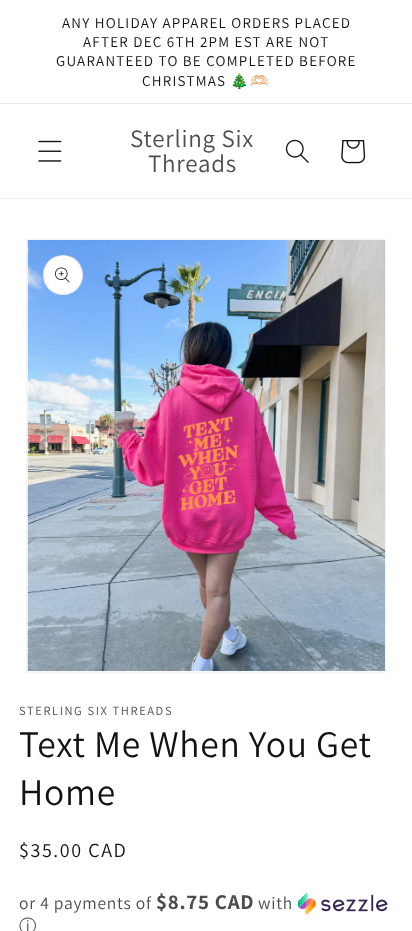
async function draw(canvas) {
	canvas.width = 412;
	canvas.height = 931;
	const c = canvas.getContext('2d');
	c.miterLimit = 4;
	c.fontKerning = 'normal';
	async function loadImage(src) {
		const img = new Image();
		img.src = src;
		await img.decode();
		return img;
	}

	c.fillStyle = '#fff';
	c.fillRect(0, 0, 412, 931);
	c.fillStyle = '#ececec';
	c.fillRect(0, 103, 412, 1);
	c.letterSpacing = '1.25px';
	c.font = '15px Assistant';
	c.fillStyle = '#121212';
	for (const [text, x, y] of [
		['ANY HOLIDAY APPAREL ORDERS PLACED', 62, 28],
		['AFTER DEC 6TH 2PM EST ARE NOT', 83, 47],
		['GUARANTEED TO BE COMPLETED BEFORE', 56, 66],
		['CHRISTMAS', 142, 86],
	]) {
		c.fillText(text, x, y);
	}
	c.font = '15px Noto Color Emoji';
	c.fillText('🎄🫶🏻', 230, 86);
	c.fillStyle = '#ececec';
	c.fillRect(0, 198, 412, 1);
	c.drawImage(await loadImage('img1.png'), 38, 140, 24, 22);
	c.letterSpacing = '0.75px';
	c.font = '25px Assistant';
	c.fillStyle = '#4d4d4d';
	c.fillText('Sterling Six', 130, 147);
	c.fillText('Threads', 148, 172);
	c.drawImage(await loadImage('img2.png'), 285, 139, 24, 24);
	c.drawImage(await loadImage('img3.png'), 341, 140, 25, 24);
	c.strokeStyle = '#f3f3f3';
	c.strokeRect(26.5, 239.5, 359, 433);
	c.drawImage(await loadImage('img4.png'), 27, 240, 358, 432);
	c.fillStyle = '#fff';
	c.beginPath();
	c.arc(63, 275, 20, 0, 2 * Math.PI);
	c.fill();
	c.beginPath();
	c.arc(63, 275, 19.5, 0, 2 * Math.PI);
	c.strokeStyle = '#1212121a';
	c.stroke();
	c.drawImage(await loadImage('img5.png'), 55, 267, 15, 16);
	c.letterSpacing = '1.6px';
	c.font = '12.5px Assistant';
	c.fillStyle = '#4d4d4d';
	c.fillText('STERLING SIX THREADS', 19, 715);
	c.letterSpacing = '0.75px';
	c.font = '37.5px Assistant';
	c.fillStyle = '#121212';
	c.fillText('Text Me When You Get', 19, 757);
	c.fillText('Home', 19, 805);
	c.letterSpacing = '1.6px';
	c.font = '20px Assistant';
	c.fillText('$35.00 CAD', 19, 857);
	c.letterSpacing = '0.75px';
	c.font = '17.5px Assistant';
	c.fillStyle = '#4d4d4d';
	c.fillText('or 4 payments of', 19, 909);
	c.font = 'bold 21px Assistant';
	c.fillText('$8.75 CAD', 156, 909);
	c.font = '17.5px Assistant';
	c.fillText('with', 258, 909);
	c.drawImage(await loadImage('img6.png'), 298, 893, 90, 22);
	c.font = '500 17.5px WenQuanYi Zen Hei';
	c.fillText('ⓘ', 19, 932);
}

draw(document.querySelector('canvas'));
